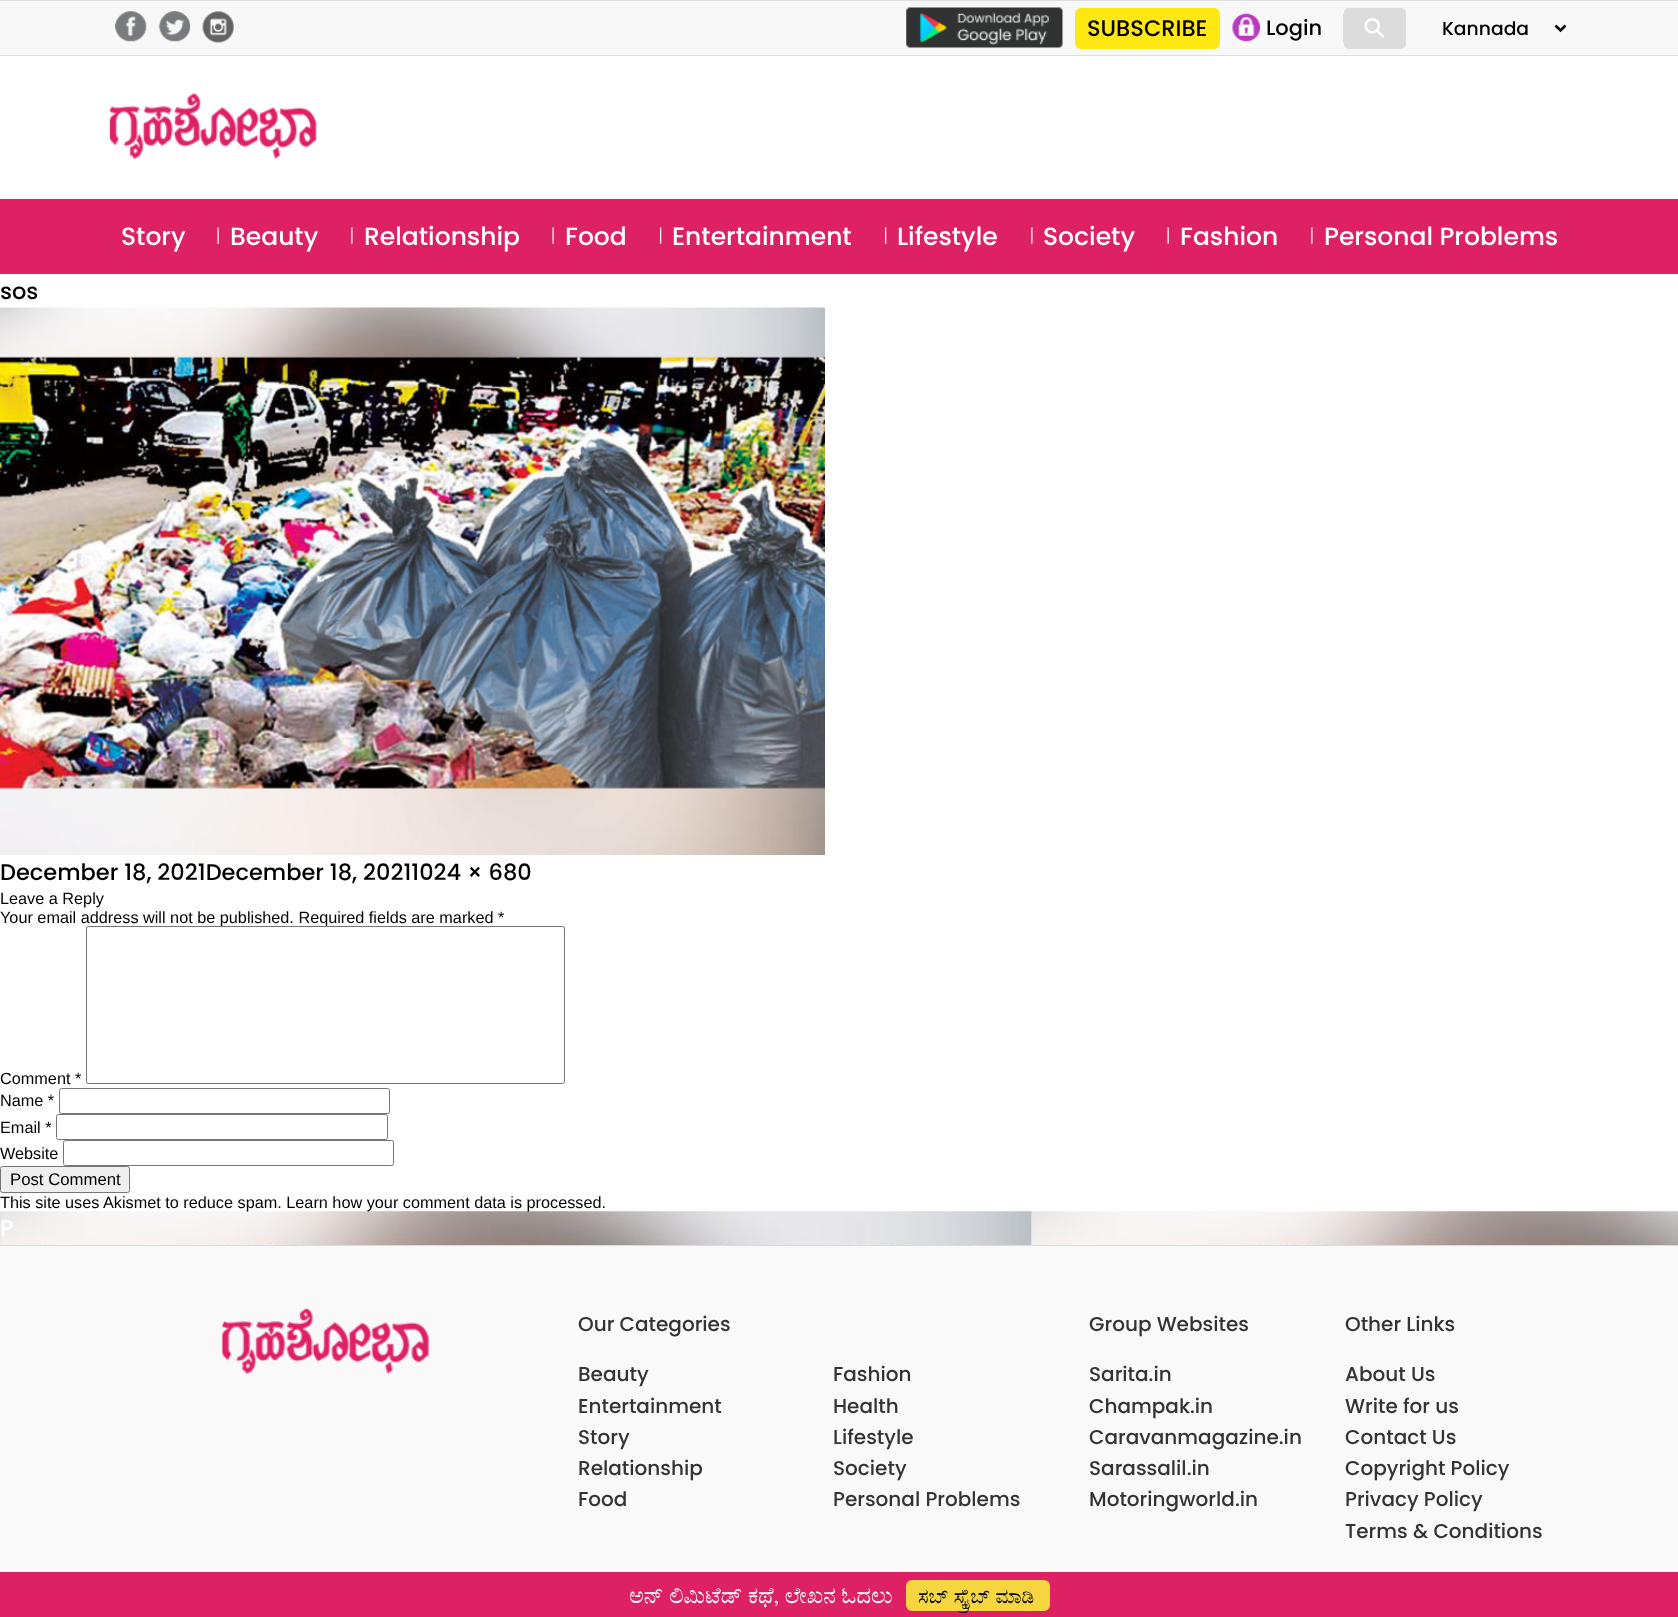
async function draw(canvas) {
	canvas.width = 1678;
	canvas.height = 1617;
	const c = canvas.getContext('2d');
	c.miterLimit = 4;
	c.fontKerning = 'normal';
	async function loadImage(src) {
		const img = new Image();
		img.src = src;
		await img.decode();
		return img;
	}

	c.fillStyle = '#fff';
	c.fillRect(0, 0, 1678, 1617);
	for (const [x, y, w, h, color] of [
		[0, 1, 1678, 54, '#f8f8f8'],
		[0, 0, 1678, 1, '#dedede'],
		[0, 55, 1678, 1, '#dedede'],
	]) {
		c.fillStyle = color;
		c.fillRect(x, y, w, h);
	}
	c.drawImage(await loadImage('img1.png'), 115, 11, 32, 31);
	c.drawImage(await loadImage('img2.png'), 158, 11, 32, 31);
	c.drawImage(await loadImage('img3.png'), 202, 11, 32, 32);
	c.drawImage(await loadImage('img4.png'), 906, 7, 157, 41);
	c.fillStyle = '#ffe712';
	c.beginPath();
	c.roundRect(1075, 8, 145, 41, 6);
	c.fill();
	c.font = '500 22.5px Poppins';
	c.fillStyle = '#000';
	c.fillText('SUBSCRIBE', 1087, 36);
	c.fillStyle = '#dcdcdc';
	c.fillRect(1343, 14, 1, 29);
	c.drawImage(await loadImage('img5.png'), 1232, 13, 28, 29);
	c.font = '500 21px Poppins';
	c.fillStyle = '#000';
	c.fillText('Login', 1266, 35);
	c.fillStyle = '#dcdcdc';
	c.beginPath();
	c.roundRect(1344, 8, 62, 41, 5);
	c.fill();
	c.font = '28px DejaVu Sans';
	c.fillStyle = '#fff';
	c.save();
	c.translate(1374, 42);
	c.rotate(-45 * Math.PI / 180);
	c.fillText('⚲', 0, 0);
	c.restore();
	c.beginPath();
	c.moveTo(1555.5, 25.5);
	c.lineTo(1560.5, 30.5);
	c.lineTo(1565.5, 25.5);
	c.strokeStyle = '#000';
	c.lineWidth = 2.5;
	c.stroke();
	c.font = '500 18.75px Poppins';
	c.fillStyle = '#000';
	c.fillText('Kannada', 1442, 35);
	c.drawImage(await loadImage('img6.png'), 108, 93, 209, 66);
	c.fillStyle = '#dd2163';
	c.fillRect(0, 199, 1678, 75);
	c.font = '500 25px Poppins';
	c.fillStyle = '#fff';
	c.fillText('Story', 121, 245);
	c.drawImage(await loadImage('img7.png'), 217, 227, 2, 17);
	c.fillText('Beauty', 230, 245);
	c.drawImage(await loadImage('img8.png'), 351, 227, 2, 17);
	c.fillText('Relationship', 364, 245);
	c.drawImage(await loadImage('img7.png'), 552, 227, 2, 17);
	c.fillText('Food', 565, 245);
	c.drawImage(await loadImage('img9.png'), 660, 227, 2, 17);
	c.fillText('Entertainment', 672, 245);
	c.drawImage(await loadImage('img9.png'), 885, 227, 2, 17);
	c.fillText('Lifestyle', 897, 245);
	c.drawImage(await loadImage('img8.png'), 1031, 227, 2, 17);
	c.fillText('Society', 1043, 245);
	c.drawImage(await loadImage('img7.png'), 1167, 227, 2, 17);
	c.fillText('Fashion', 1180, 245);
	c.drawImage(await loadImage('img8.png'), 1311, 227, 2, 17);
	c.fillText('Personal Problems', 1324, 245);
	c.font = '500 22.5px Poppins';
	c.fillStyle = '#000';
	c.fillText('sos', 0, 299);
	c.drawImage(await loadImage('img10.png'), 0, 307, 825, 548);
	c.fillText('December 18, 2021December 18, 20211024 × 680', 0, 880);
	c.font = '16.25px Liberation Sans';
	for (const [text, x, y] of [
		['Leave a Reply', 0, 904],
		['Your email address will not be published. Required fields are marked *', 0, 923],
		['Comment *', 0, 1084],
	]) {
		c.fillText(text, x, y);
	}
	c.fillStyle = '#fff';
	c.beginPath();
	c.roundRect(86.5, 926.5, 478, 157, 2);
	c.fill();
	c.strokeStyle = '#767676';
	c.lineWidth = 1;
	c.stroke();
	c.fillStyle = '#000';
	c.fillText('Name *', 0, 1106);
	c.beginPath();
	c.roundRect(59.5, 1088.5, 330, 25, 2);
	c.stroke();
	c.fillText('Email *', 0, 1133);
	c.beginPath();
	c.roundRect(56.5, 1114.5, 331, 25, 2);
	c.stroke();
	c.fillText('Website', 0, 1159);
	c.beginPath();
	c.roundRect(63.5, 1140.5, 330, 25, 2);
	c.stroke();
	c.fillStyle = '#efefef';
	c.beginPath();
	c.roundRect(0.5, 1166.5, 129, 26, 2);
	c.fill();
	c.stroke();
	c.font = '16.75px Liberation Sans';
	c.fillStyle = '#000';
	c.fillText('Post Comment', 10, 1185);
	c.drawImage(await loadImage('img11.png'), 0, 1211, 1678, 34);
	c.font = '16.25px Liberation Sans';
	c.fillText('This site uses Akismet to reduce spam. Learn how your comment data is processed.', 0, 1208);
	c.font = '500 22.5px Poppins';
	c.fillStyle = '#fff';
	c.fillText('P', 0, 1236);
	c.fillStyle = '#f9f9f9';
	c.fillRect(0, 1246, 1678, 323);
	c.fillStyle = '#dbdbdb';
	c.fillRect(0, 1245, 1678, 1);
	c.drawImage(await loadImage('img12.png'), 221, 1308, 208, 66);
	c.font = '500 20px Poppins';
	c.fillStyle = '#333';
	for (const [text, x, y] of [
		['Our Categories', 578, 1331],
		['Beauty', 578, 1381],
		['Entertainment', 578, 1413],
		['Story', 578, 1444],
		['Relationship', 578, 1475],
		['Food', 578, 1506],
		['Fashion', 833, 1381],
		['Health', 833, 1413],
		['Lifestyle', 833, 1444],
		['Society', 833, 1475],
		['Personal Problems', 833, 1506],
		['Group Websites', 1089, 1331],
		['Sarita.in', 1089, 1381],
		['Champak.in', 1089, 1413],
		['Caravanmagazine.in', 1089, 1444],
		['Sarassalil.in', 1089, 1475],
		['Motoringworld.in', 1089, 1506],
		['Other Links', 1345, 1331],
		['About Us', 1345, 1381],
		['Write for us', 1345, 1413],
		['Contact Us', 1345, 1444],
		['Copyright Policy', 1345, 1475],
		['Privacy Policy', 1345, 1506],
		['Terms & Conditions', 1345, 1538],
	]) {
		c.fillText(text, x, y);
	}
	c.fillStyle = '#dd2163';
	c.fillRect(0, 1572, 1678, 45);
	c.font = '22.5px FreeSerif';
	c.fillStyle = '#fff';
	c.fillText('ಅನ್ ಲಿಮಿಟೆಡ್ ಕಥೆ, ಲೇಖನ ಓದಲು', 629, 1603);
	c.fillStyle = '#f5d540';
	c.beginPath();
	c.roundRect(906, 1580, 144, 31, 6);
	c.fill();
	c.font = '20px FreeSerif';
	c.fillStyle = '#000';
	c.fillText('ಸಬ್ ಸ್ಕ್ರೈಬ್ ಮಾಡಿ', 918, 1603);
}

draw(document.querySelector('canvas'));
